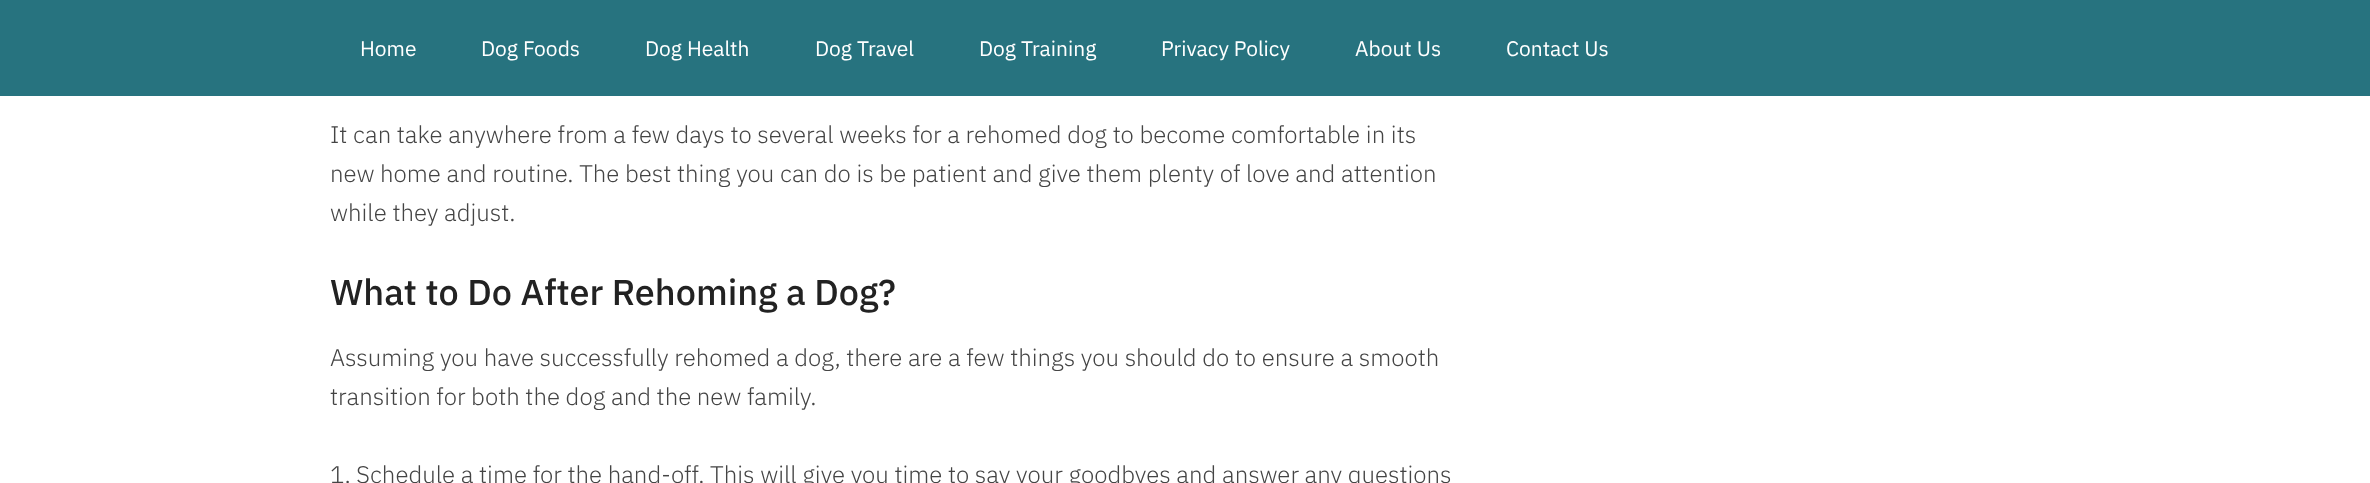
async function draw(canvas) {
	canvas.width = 2370;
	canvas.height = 483;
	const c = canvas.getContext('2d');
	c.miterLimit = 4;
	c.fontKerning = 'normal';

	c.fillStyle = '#fff';
	c.fillRect(0, 0, 2370, 483);
	c.fillStyle = '#27737f';
	c.fillRect(0, 0, 2370, 96);
	c.font = '21px IBM Plex Sans';
	c.fillStyle = '#fff';
	for (const [text, x, y] of [
		['Home', 360, 56],
		['Dog Foods', 481, 56],
		['Dog Health', 645, 56],
		['Dog Travel', 815, 56],
		['Dog Training', 979, 56],
		['Privacy Policy', 1161, 56],
		['About Us', 1355, 56],
		['Contact Us', 1506, 56],
	]) {
		c.fillText(text, x, y);
	}
	c.font = '300 24px IBM Plex Sans';
	c.fillStyle = '#444';
	for (const [text, x, y] of [
		['It can take anywhere from a few days to several weeks for a rehomed dog to become comfortable in its', 330, 143],
		['new home and routine. The best thing you can do is be patient and give them plenty of love and attention', 330, 182],
		['while they adjust.', 330, 221],
	]) {
		c.fillText(text, x, y);
	}
	c.font = '500 36px IBM Plex Sans';
	c.fillStyle = '#222';
	c.fillText('What to Do After Rehoming a Dog?', 330, 305);
	c.font = '300 24px IBM Plex Sans';
	c.fillStyle = '#444';
	for (const [text, x, y] of [
		['Assuming you have successfully rehomed a dog, there are a few things you should do to ensure a smooth', 330, 366],
		['transition for both the dog and the new family.', 330, 405],
		['1. Schedule a time for the hand-off. This will give you time to say your goodbyes and answer any questions', 330, 483],
	]) {
		c.fillText(text, x, y);
	}
}

draw(document.querySelector('canvas'));
